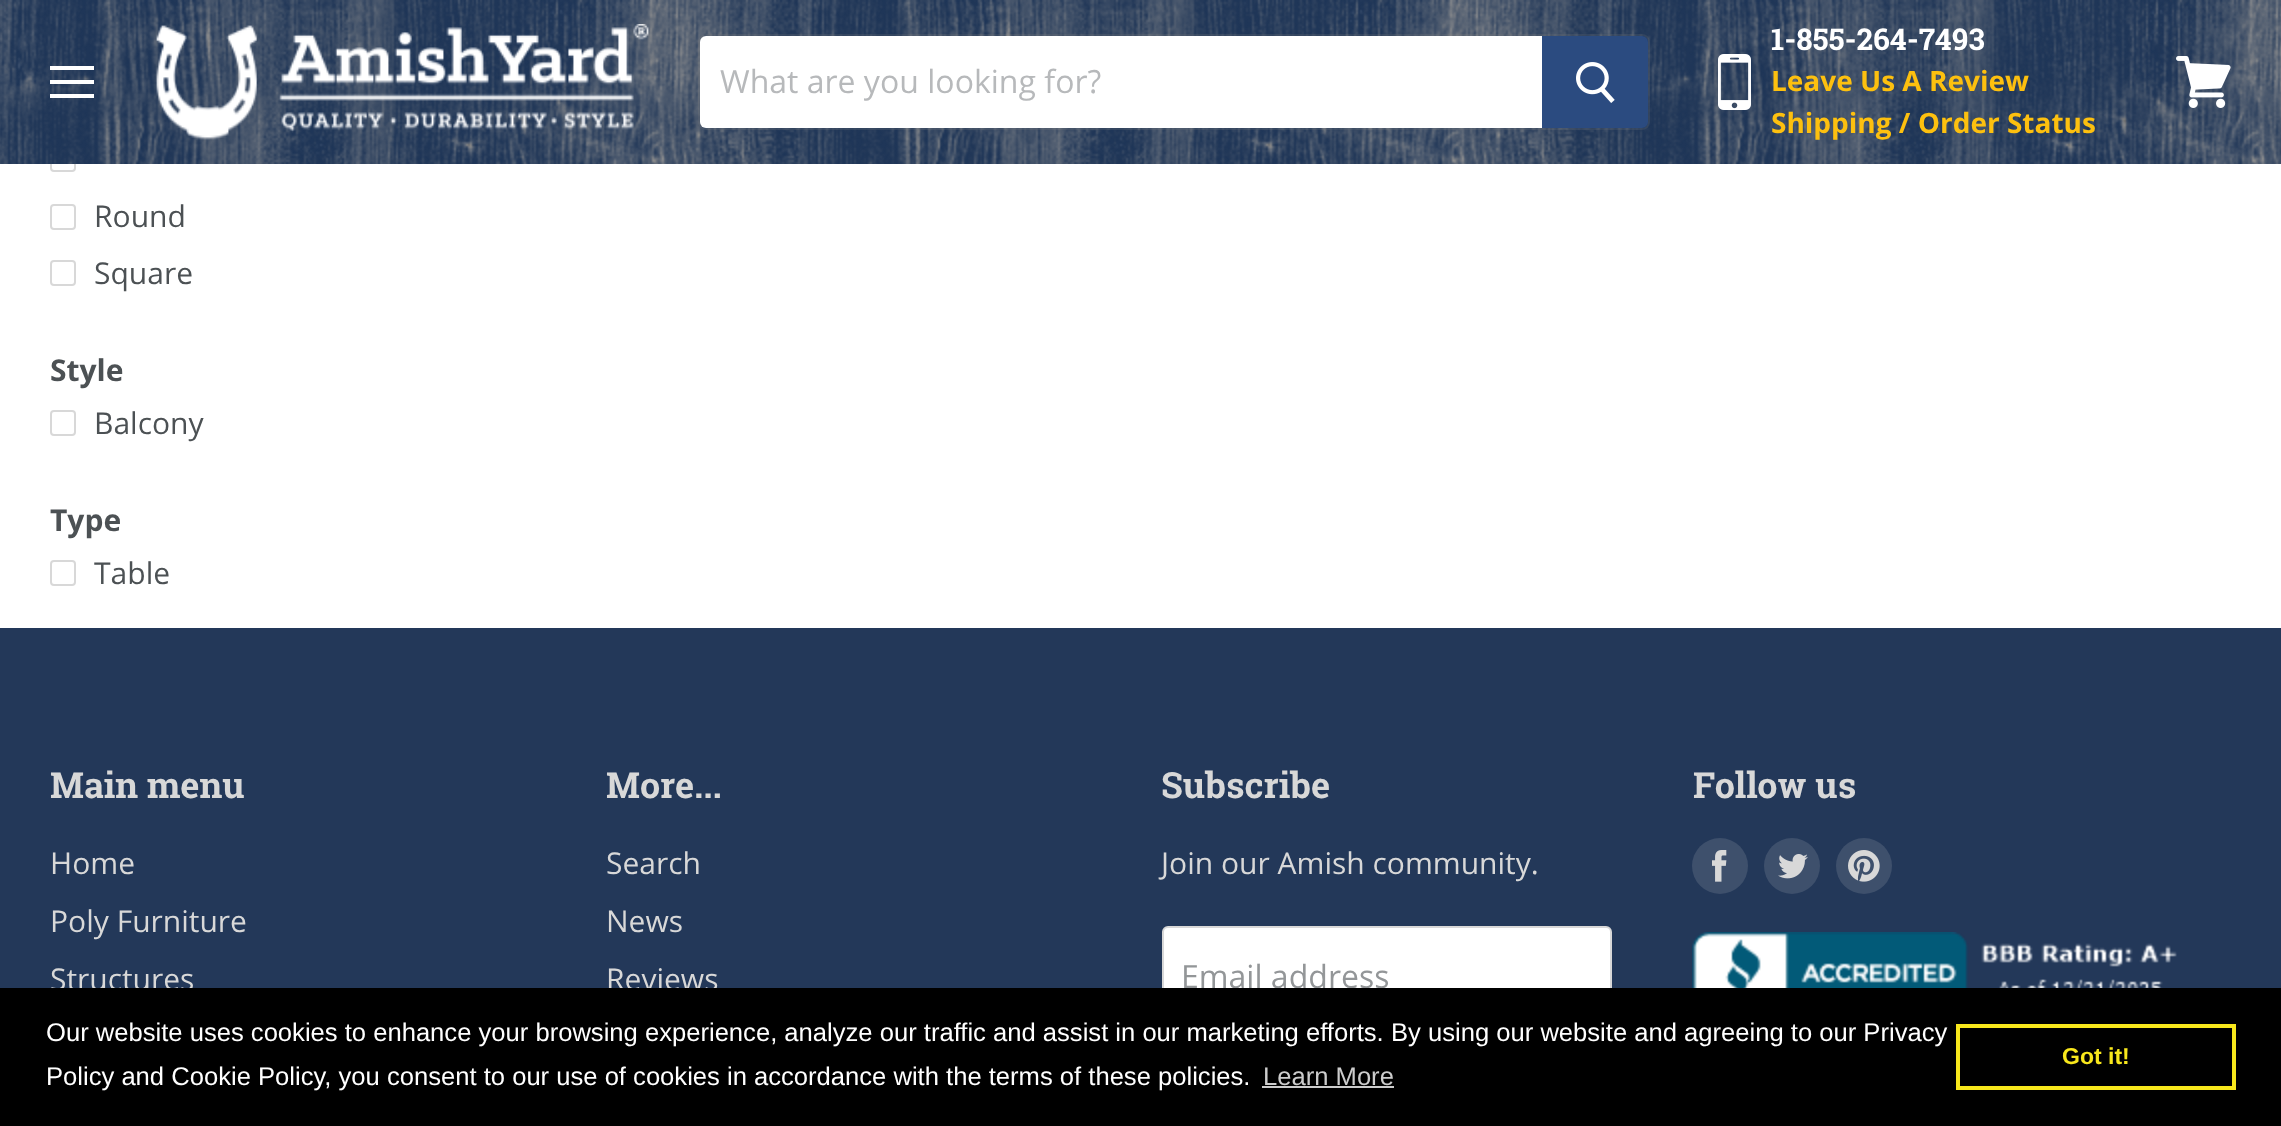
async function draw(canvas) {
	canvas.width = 2281;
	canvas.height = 1126;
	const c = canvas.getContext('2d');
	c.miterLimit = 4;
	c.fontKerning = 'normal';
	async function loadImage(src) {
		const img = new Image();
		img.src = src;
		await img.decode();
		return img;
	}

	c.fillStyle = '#fff';
	c.fillRect(0, 0, 2281, 1126);
	c.beginPath();
	c.roundRect(51, 147, 24, 24, 3);
	c.strokeStyle = '#d8d8d8';
	c.lineWidth = 2;
	c.stroke();
	c.fillStyle = '#1f3658';
	c.fillRect(0, 0, 2281, 164);
	c.drawImage(await loadImage('img1.png'), 0, 0, 2281, 164);
	for (const [x, y, w, h, color] of [
		[50, 66, 44, 4, '#fff'],
		[50, 80, 44, 4, '#fff'],
		[50, 94, 44, 4, '#fff'],
	]) {
		c.fillStyle = color;
		c.fillRect(x, y, w, h);
	}
	c.drawImage(await loadImage('img2.png'), 156, 24, 493, 116);
	c.beginPath();
	c.roundRect(699, 35, 950, 94, 7);
	c.strokeStyle = '#7f7f7f33';
	c.stroke();
	c.beginPath();
	c.roundRect(700, 36, 842, 92, [6, 0, 0, 6]);
	c.fill();
	c.font = '32px Open Sans';
	c.fillStyle = '#b7b9bb';
	c.fillText('What are you looking for?', 720, 93);
	c.fillStyle = '#2b4b80';
	c.beginPath();
	c.roundRect(1543, 37, 104, 90, [0, 5, 5, 0]);
	c.fill();
	c.strokeStyle = '#2b4b80';
	c.stroke();
	c.drawImage(await loadImage('img3.png'), 1576, 62, 39, 41);
	c.drawImage(await loadImage('img4.png'), 1718, 54, 33, 56);
	c.font = 'bold 30px Roboto Slab';
	c.fillStyle = '#fff';
	c.fillText('1-855-264-7493', 1771, 50);
	c.font = 'bold 28px Open Sans';
	c.fillStyle = '#fdc00f';
	c.fillText('Leave Us A Review', 1771, 91);
	c.fillText('Shipping / Order Status', 1771, 133);
	c.drawImage(await loadImage('img5.png'), 2176, 56, 55, 52);
	c.beginPath();
	c.roundRect(51, 205, 24, 24, 3);
	c.strokeStyle = '#d8d8d8';
	c.stroke();
	c.font = '30px Open Sans';
	c.fillStyle = '#4c5154';
	c.fillText('Round', 94, 227);
	c.beginPath();
	c.roundRect(51, 261, 24, 24, 3);
	c.stroke();
	c.fillText('Square', 94, 284);
	c.font = 'bold 30px Open Sans';
	c.fillText('Style', 50, 381);
	c.beginPath();
	c.roundRect(51, 411, 24, 24, 3);
	c.stroke();
	c.font = '30px Open Sans';
	c.fillText('Balcony', 94, 434);
	c.font = 'bold 30px Open Sans';
	c.fillText('Type', 50, 531);
	c.beginPath();
	c.roundRect(51, 561, 24, 24, 3);
	c.stroke();
	c.font = '30px Open Sans';
	c.fillText('Table', 94, 584);
	c.fillStyle = '#233859';
	c.fillRect(0, 628, 2281, 360);
	c.font = 'bold 36px Roboto Slab';
	c.fillStyle = '#d8d8d8';
	c.fillText('Main menu', 50, 798);
	c.font = '30px Open Sans';
	for (const [text, x, y] of [
		['Home', 50, 874],
		['Poly Furniture', 50, 932],
		['Structures', 50, 990],
	]) {
		c.fillText(text, x, y);
	}
	c.font = 'bold 36px Roboto Slab';
	c.fillText('More...', 606, 798);
	c.font = '30px Open Sans';
	for (const [text, x, y] of [
		['Search', 606, 874],
		['News', 606, 932],
		['Reviews', 606, 990],
	]) {
		c.fillText(text, x, y);
	}
	c.font = 'bold 36px Roboto Slab';
	c.fillText('Subscribe', 1161, 798);
	c.font = '30px Open Sans';
	c.fillText('Join our Amish community.', 1161, 874);
	c.fillStyle = '#fff';
	c.beginPath();
	c.roundRect(1163, 927, 448, 98, 5);
	c.fill();
	c.stroke();
	c.font = '32px Open Sans';
	c.fillStyle = '#939698';
	c.fillText('Email address', 1181, 988);
	c.font = 'bold 36px Roboto Slab';
	c.fillStyle = '#d8d8d8';
	c.fillText('Follow us', 1693, 798);
	c.fillStyle = '#3e506c';
	c.beginPath();
	c.arc(1720, 866, 28, 0, 2 * Math.PI);
	c.fill();
	c.drawImage(await loadImage('img6.png'), 1712, 850, 15, 32);
	c.beginPath();
	c.arc(1792, 866, 28, 0, 2 * Math.PI);
	c.fill();
	c.drawImage(await loadImage('img7.png'), 1778, 854, 30, 25);
	c.beginPath();
	c.arc(1864, 866, 28, 0, 2 * Math.PI);
	c.fill();
	c.drawImage(await loadImage('img8.png'), 1848, 850, 32, 32);
	c.drawImage(await loadImage('img9.png'), 1692, 932, 485, 56);
	c.fillStyle = '#000';
	c.fillRect(0, 988, 2281, 138);
	c.font = '25.6px Liberation Sans';
	c.fillStyle = '#fff';
	for (const [text, x, y] of [
		['Our website uses cookies to enhance your browsing experience, analyze our traffic and assist in our marketing efforts.', 46, 1041],
		['By using our website and agreeing to our Privacy', 1391, 1041],
		['Policy and Cookie Policy, you consent to our use of cookies in accordance with the terms of these policies.', 46, 1085],
	]) {
		c.fillText(text, x, y);
	}
	c.fillStyle = '#ccc';
	c.fillText('Learn More', 1263, 1085);
	c.fillRect(1262, 1086, 132, 2);
	c.strokeStyle = '#f8e71c';
	c.lineWidth = 4;
	c.strokeRect(1958, 1026, 276, 62);
	c.font = 'bold 23px Liberation Sans';
	c.fillStyle = '#f8e71c';
	c.fillText('Got it!', 2062, 1064);
}

draw(document.querySelector('canvas'));
